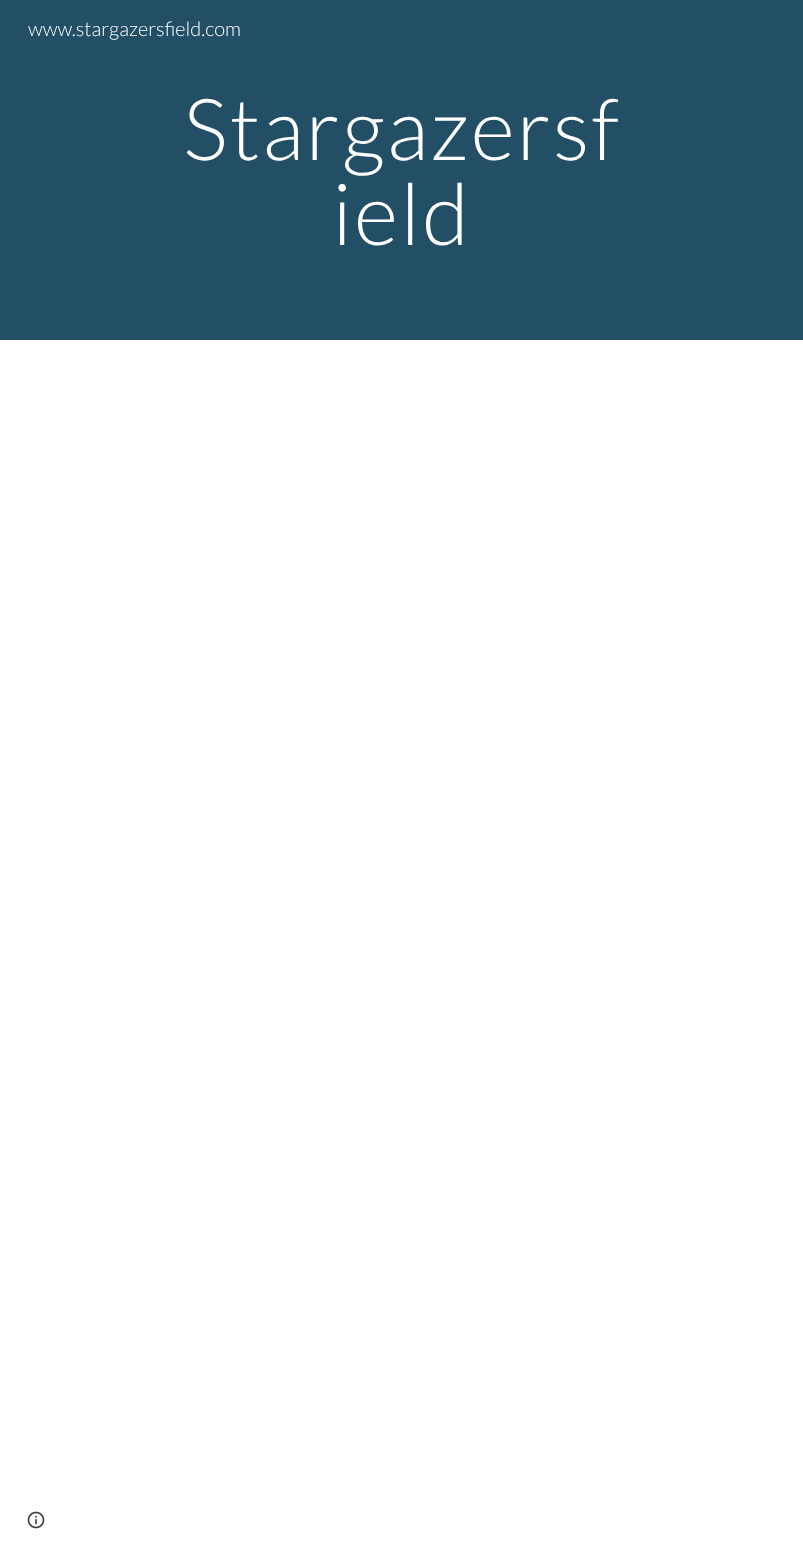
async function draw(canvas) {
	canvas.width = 803;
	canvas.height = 1554;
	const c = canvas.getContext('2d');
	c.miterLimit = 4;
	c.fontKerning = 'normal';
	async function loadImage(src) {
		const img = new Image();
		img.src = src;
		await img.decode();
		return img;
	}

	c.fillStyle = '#fff';
	c.fillRect(0, 0, 803, 1554);
	c.fillStyle = '#224f66';
	c.fillRect(0, 0, 803, 340);
	c.font = '300 20px Lato';
	c.fillStyle = '#fff';
	c.fillText('www.stargazersfield.com', 28, 36);
	c.letterSpacing = '2px';
	c.font = '300 85.5px Lato';
	c.fillText('Stargazersf', 183, 160);
	c.fillText('ield', 332, 245);
	c.drawImage(await loadImage('img1.png'), 27, 1511, 18, 18);
}

draw(document.querySelector('canvas'));
